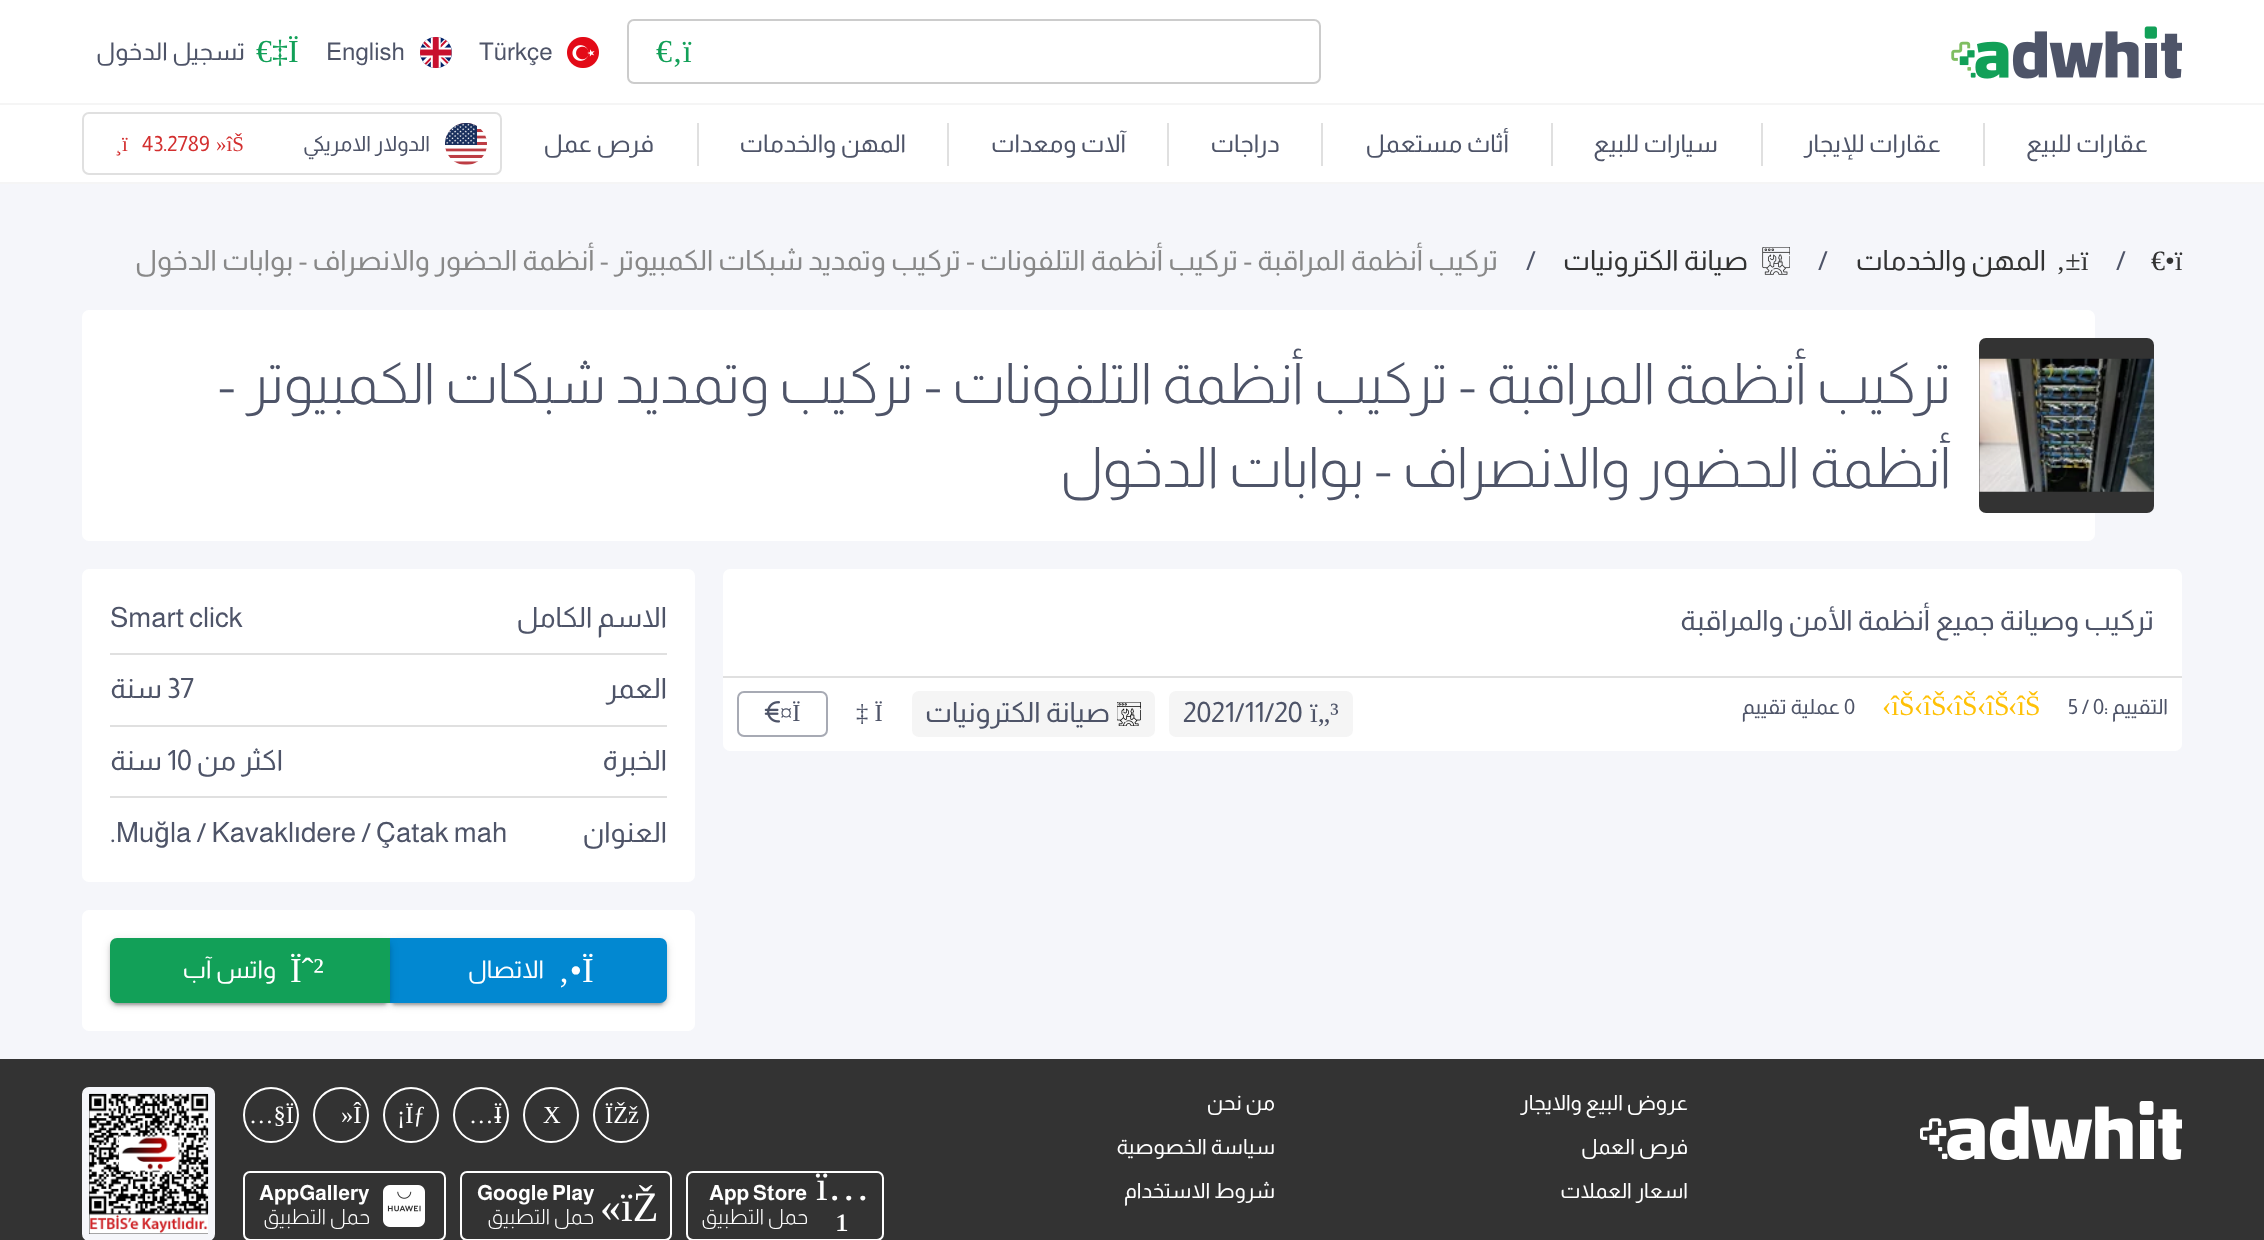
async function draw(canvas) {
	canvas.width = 2264;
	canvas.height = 1240;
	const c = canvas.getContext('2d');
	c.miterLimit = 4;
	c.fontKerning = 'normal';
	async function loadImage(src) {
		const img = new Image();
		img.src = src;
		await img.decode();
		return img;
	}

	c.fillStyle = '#f5f6fa';
	c.fillRect(0, 0, 2264, 1240);
	c.fillStyle = '#fff';
	c.fillRect(0, 0, 2264, 103);
	c.fillStyle = '#f5f5f5';
	c.fillRect(0, 103, 2264, 2);
	c.drawImage(await loadImage('img1.png'), 1951, 26, 231, 53);
	c.beginPath();
	c.roundRect(628, 20, 692, 63, 6);
	c.strokeStyle = '#ccc';
	c.lineWidth = 2;
	c.stroke();
	c.font = '32px Liberation Serif';
	c.fillStyle = '#12a058';
	c.fillText('€‚ï', 656, 62);
	c.drawImage(await loadImage('img2.png'), 567, 37, 32, 31);
	c.font = '24.5px Almarai';
	c.fillStyle = '#4e5468';
	c.fillText('Türkçe', 479, 60);
	c.drawImage(await loadImage('img3.png'), 420, 37, 32, 31);
	c.fillText('English', 326, 60);
	c.font = '32px Liberation Serif';
	c.fillStyle = '#12a058';
	c.fillText('€‡Ï', 256, 62);
	c.direction = 'rtl';
	c.font = '24.5px Almarai';
	c.fillStyle = '#4e5468';
	c.fillText('تسجيل الدخول', 245, 60);
	c.fillStyle = '#fff';
	c.fillRect(0, 105, 2264, 77);
	c.fillStyle = '#f5f5f5';
	c.fillRect(0, 182, 2264, 2);
	c.fillStyle = '#4e5468';
	c.fillText('عقارات للبيع', 2148, 152);
	c.fillStyle = '#e0e0e0';
	c.fillRect(1983, 123, 2, 43);
	c.fillStyle = '#4e5468';
	c.fillText('عقارات للإيجار', 1941, 152);
	c.fillStyle = '#e0e0e0';
	c.fillRect(1761, 123, 2, 43);
	c.fillStyle = '#4e5468';
	c.fillText('سيارات للبيع', 1718, 152);
	c.fillStyle = '#e0e0e0';
	c.fillRect(1551, 123, 2, 43);
	c.fillStyle = '#4e5468';
	c.fillText('أثاث مستعمل', 1509, 152);
	c.fillStyle = '#e0e0e0';
	c.fillRect(1321, 123, 2, 43);
	c.fillStyle = '#4e5468';
	c.fillText('دراجات', 1280, 152);
	c.fillStyle = '#e0e0e0';
	c.fillRect(1167, 123, 2, 43);
	c.fillStyle = '#4e5468';
	c.fillText('آلات ومعدات', 1126, 152);
	c.fillStyle = '#e0e0e0';
	c.fillRect(947, 123, 2, 43);
	c.fillStyle = '#4e5468';
	c.fillText('المهن والخدمات', 906, 152);
	c.fillStyle = '#e0e0e0';
	c.fillRect(697, 123, 2, 43);
	c.fillStyle = '#4e5468';
	c.fillText('فرص عمل', 654, 152);
	c.beginPath();
	c.roundRect(83, 113, 418, 61, 6);
	c.strokeStyle = '#e0e0e0';
	c.stroke();
	c.drawImage(await loadImage('img4.png'), 445, 123, 42, 42);
	c.font = '21px Almarai';
	c.fillText('الدولار الامريكي', 430, 151);
	c.direction = 'ltr';
	c.font = '21px Liberation Serif';
	c.fillStyle = '#d32f2f';
	c.fillText('»îŠ', 216, 151);
	c.font = '21px Almarai';
	c.fillText('43.2789', 142, 151);
	c.font = '21px Liberation Serif';
	c.fillText('¸ï', 115, 151);
	c.font = '28px Liberation Serif';
	c.fillStyle = '#333';
	c.fillText('€•ï', 2151, 270);
	c.font = '28px Almarai';
	c.fillStyle = '#4e5468';
	c.fillText('/', 2116, 270);
	c.font = '28px Liberation Serif';
	c.fillStyle = '#333';
	c.fillText('‚±ï', 2056, 270);
	c.direction = 'rtl';
	c.font = '28px Almarai';
	c.fillText('المهن والخدمات', 2046, 270);
	c.direction = 'ltr';
	c.fillStyle = '#4e5468';
	c.fillText('/', 1818, 270);
	c.drawImage(await loadImage('img5.png'), 1762, 247, 28, 28);
	c.direction = 'rtl';
	c.fillStyle = '#333';
	c.fillText('صيانة الكترونيات', 1748, 270);
	c.direction = 'ltr';
	c.fillStyle = '#4e5468';
	c.fillText('/', 1526, 270);
	c.direction = 'rtl';
	c.fillStyle = '#888';
	c.fillText('تركيب أنظمة المراقبة - تركيب أنظمة التلفونات - تركيب وتمديد شبكات الكمبيوتر - أنظمة الحضور والانصراف - بوابات الدخول', 1498, 270);
	c.fillStyle = '#fff';
	c.beginPath();
	c.roundRect(82, 310, 2013, 231, 7);
	c.fill();
	c.fillStyle = '#333';
	c.beginPath();
	c.roundRect(1979, 338, 175, 175, 7);
	c.fill();
	c.drawImage(await loadImage('img6.png'), 1979, 358, 176, 134);
	c.font = '300 56px Almarai';
	c.fillStyle = '#4e5468';
	c.fillText('تركيب أنظمة المراقبة - تركيب أنظمة التلفونات - تركيب وتمديد شبكات الكمبيوتر -', 1951, 403);
	c.fillText('أنظمة الحضور والانصراف - بوابات الدخول', 1951, 487);
	c.fillStyle = '#fff';
	c.beginPath();
	c.roundRect(723, 569, 1459, 182, 7);
	c.fill();
	c.font = '28px Almarai';
	c.fillStyle = '#4e5468';
	c.fillText('تركيب وصيانة جميع أنظمة الأمن والمراقبة', 2154, 630);
	c.fillStyle = '#e0e0e0';
	c.fillRect(723, 676, 1459, 2);
	c.font = '21px Almarai';
	c.fillStyle = '#4e5468';
	c.fillText('التقييم', 2168, 714);
	c.direction = 'ltr';
	for (const [text, x, y] of [
		[':', 2104, 714],
		['0', 2093, 714],
		['5 /', 2068, 714],
	]) {
		c.fillText(text, x, y);
	}
	c.font = '28px Liberation Serif';
	c.fillStyle = '#ffc107';
	for (const [text, x, y] of [
		['‹îŠ', 2008, 715],
		['‹îŠ', 1977, 715],
		['‹îŠ', 1945, 715],
		['‹îŠ', 1914, 715],
		['‹îŠ', 1882, 715],
	]) {
		c.fillText(text, x, y);
	}
	c.font = '21px Almarai';
	c.fillStyle = '#4e5468';
	c.fillText('0', 1844, 714);
	c.direction = 'rtl';
	c.fillText('عملية تقييم', 1840, 714);
	c.fillStyle = '#f5f5f5';
	c.beginPath();
	c.roundRect(1169, 691, 184, 46, 7);
	c.fill();
	c.direction = 'ltr';
	c.font = '28px Liberation Serif';
	c.fillStyle = '#4e5468';
	c.fillText('ï„³', 1310, 722);
	c.font = '28px Almarai';
	c.fillText('2021/11/20', 1183, 722);
	c.fillStyle = '#f5f5f5';
	c.beginPath();
	c.roundRect(912, 691, 243, 46, 7);
	c.fill();
	c.drawImage(await loadImage('img7.png'), 1117, 702, 24, 24);
	c.direction = 'rtl';
	c.fillStyle = '#4e5468';
	c.fillText('صيانة الكترونيات', 1110, 722);
	c.direction = 'ltr';
	c.font = '24.5px Liberation Serif';
	c.fillText('‡ Ï', 856, 721);
	c.beginPath();
	c.roundRect(738, 692, 89, 44, 6);
	c.strokeStyle = '#a7aab4';
	c.stroke();
	c.fillText('¤Ï', 780, 721);
	c.drawImage(await loadImage('img8.png'), 764, 701, 16, 22);
	c.fillStyle = '#fff';
	c.beginPath();
	c.roundRect(82, 569, 613, 313, 7);
	c.fill();
	c.direction = 'rtl';
	c.font = '28px Almarai';
	c.fillStyle = '#4e5468';
	c.fillText('الاسم الكامل', 667, 627);
	c.direction = 'ltr';
	c.fillText('Smart click', 110, 627);
	c.fillStyle = '#e0e0e0';
	c.fillRect(110, 653, 557, 2);
	c.direction = 'rtl';
	c.fillStyle = '#4e5468';
	c.fillText('العمر', 667, 698);
	c.direction = 'ltr';
	c.fillText('37', 167, 698);
	c.direction = 'rtl';
	c.fillText('سنة', 162, 698);
	c.fillStyle = '#e0e0e0';
	c.fillRect(110, 725, 557, 2);
	c.fillStyle = '#4e5468';
	c.fillText('الخبرة', 667, 770);
	c.fillText('اكثر من', 283, 770);
	c.direction = 'ltr';
	c.fillText('10', 167, 770);
	c.direction = 'rtl';
	c.fillText('سنة', 162, 770);
	c.fillStyle = '#e0e0e0';
	c.fillRect(110, 796, 557, 2);
	c.fillStyle = '#4e5468';
	c.fillText('العنوان', 667, 842);
	c.direction = 'ltr';
	c.fillText('dere / Çatak mah', 301, 842);
	c.font = '28px Roboto';
	c.fillText('ı', 294, 842);
	c.font = '28px Almarai';
	c.fillText('la / Kavakl', 170, 842);
	c.font = '28px Roboto';
	c.fillText('ğ', 154, 842);
	c.font = '28px Almarai';
	c.fillText('Mu', 116, 842);
	c.fillText('.', 110, 842);
	c.fillStyle = '#fff';
	c.beginPath();
	c.roundRect(82, 910, 613, 121, 7);
	c.fill();
	c.fillStyle = '#0000001f';
	c.filter = 'blur(4.5px)';
	c.beginPath();
	c.roundRect(389, 940, 278, 65, 7);
	c.fill();
	c.filter = 'none';
	c.fillStyle = '#00000024';
	c.filter = 'blur(2px)';
	c.beginPath();
	c.roundRect(389, 942, 278, 64, 7);
	c.fill();
	c.filter = 'none';
	c.fillStyle = '#00000033';
	c.filter = 'blur(1px)';
	c.beginPath();
	c.roundRect(392, 947, 271, 58, 4);
	c.fill();
	c.filter = 'none';
	c.fillStyle = '#0288d1';
	c.beginPath();
	c.roundRect(389, 938, 278, 65, [0, 7, 7, 0]);
	c.fill();
	c.font = '35px Liberation Serif';
	c.fillStyle = '#fff';
	c.fillText('‚•Ï', 558, 982);
	c.direction = 'rtl';
	c.font = '24.5px Almarai';
	c.fillText('الاتصال', 544, 978);
	c.fillStyle = '#0000001f';
	c.filter = 'blur(4.5px)';
	c.beginPath();
	c.roundRect(110, 940, 280, 65, 7);
	c.fill();
	c.filter = 'none';
	c.fillStyle = '#00000024';
	c.filter = 'blur(2px)';
	c.beginPath();
	c.roundRect(110, 942, 280, 64, 7);
	c.fill();
	c.filter = 'none';
	c.fillStyle = '#00000033';
	c.filter = 'blur(1px)';
	c.beginPath();
	c.roundRect(114, 947, 273, 58, 4);
	c.fill();
	c.filter = 'none';
	c.fillStyle = '#12a058';
	c.beginPath();
	c.roundRect(110, 938, 280, 65, [7, 0, 0, 7]);
	c.fill();
	c.direction = 'ltr';
	c.font = '35px Liberation Serif';
	c.fillStyle = '#fff';
	c.fillText('Ïˆ²', 290, 982);
	c.direction = 'rtl';
	c.font = '24.5px Almarai';
	c.fillText('واتس آب', 276, 978);
	c.fillStyle = '#333';
	c.fillRect(0, 1059, 2264, 181);
	c.drawImage(await loadImage('img9.png'), 1920, 1101, 262, 59);
	c.font = '21px Almarai';
	c.fillStyle = '#fff';
	for (const [text, x, y] of [
		['عروض البيع والايجار', 1688, 1110],
		['فرص العمل', 1688, 1154],
		['اسعار العملات', 1688, 1198],
		['من نحن', 1275, 1110],
		['سياسة الخصوصية', 1275, 1154],
		['شروط الاستخدام', 1275, 1198],
	]) {
		c.fillText(text, x, y);
	}
	c.beginPath();
	c.arc(621, 1115, 27, 0, 2 * Math.PI);
	c.strokeStyle = '#fff';
	c.stroke();
	c.direction = 'ltr';
	c.font = '24.5px Liberation Serif';
	c.fillText('ÏŽž', 605, 1123);
	c.beginPath();
	c.arc(551, 1115, 27, 0, 2 * Math.PI);
	c.stroke();
	c.fillText('X', 543, 1123);
	c.beginPath();
	c.arc(481, 1115, 27, 0, 2 * Math.PI);
	c.stroke();
	c.fillText('…-', 469, 1123);
	c.fillText('Ï', 494, 1123);
	c.beginPath();
	c.arc(411, 1115, 27, 0, 2 * Math.PI);
	c.stroke();
	c.fillText('¡Ïƒ', 397, 1123);
	c.beginPath();
	c.arc(341, 1115, 27, 0, 2 * Math.PI);
	c.stroke();
	c.fillText('»Î', 341, 1123);
	c.beginPath();
	c.arc(271, 1115, 27, 0, 2 * Math.PI);
	c.stroke();
	c.fillText('…§Ï', 249, 1123);
	c.beginPath();
	c.roundRect(687, 1172, 196, 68, 6);
	c.stroke();
	c.font = '42px Liberation Serif';
	c.fillText('ï…', 816, 1200);
	c.fillText('¹', 836, 1242);
	c.font = 'bold 21px Almarai';
	c.fillText('App Store', 709, 1200);
	c.direction = 'rtl';
	c.font = '300 21px Almarai';
	c.fillText('حمل التطبيق', 808, 1224);
	c.beginPath();
	c.roundRect(461, 1172, 210, 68, 6);
	c.stroke();
	c.direction = 'ltr';
	c.font = '42px Liberation Serif';
	c.fillText('«ïŽ', 600, 1221);
	c.font = 'bold 21px Almarai';
	c.fillText('Google Play', 477, 1200);
	c.direction = 'rtl';
	c.font = '300 21px Almarai';
	c.fillText('حمل التطبيق', 594, 1224);
	c.beginPath();
	c.roundRect(244, 1172, 201, 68, 6);
	c.stroke();
	c.drawImage(await loadImage('img10.png'), 383, 1185, 42, 42);
	c.direction = 'ltr';
	c.font = 'bold 21px Almarai';
	c.fillText('AppGallery', 259, 1200);
	c.direction = 'rtl';
	c.font = '300 21px Almarai';
	c.fillText('حمل التطبيق', 370, 1224);
	c.beginPath();
	c.roundRect(85.5, 1090.5, 126, 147, 3.5);
	c.strokeStyle = '#f5f6fa';
	c.lineWidth = 7;
	c.stroke();
	c.drawImage(await loadImage('img11.png'), 89, 1093, 120, 141);
}

draw(document.querySelector('canvas'));
